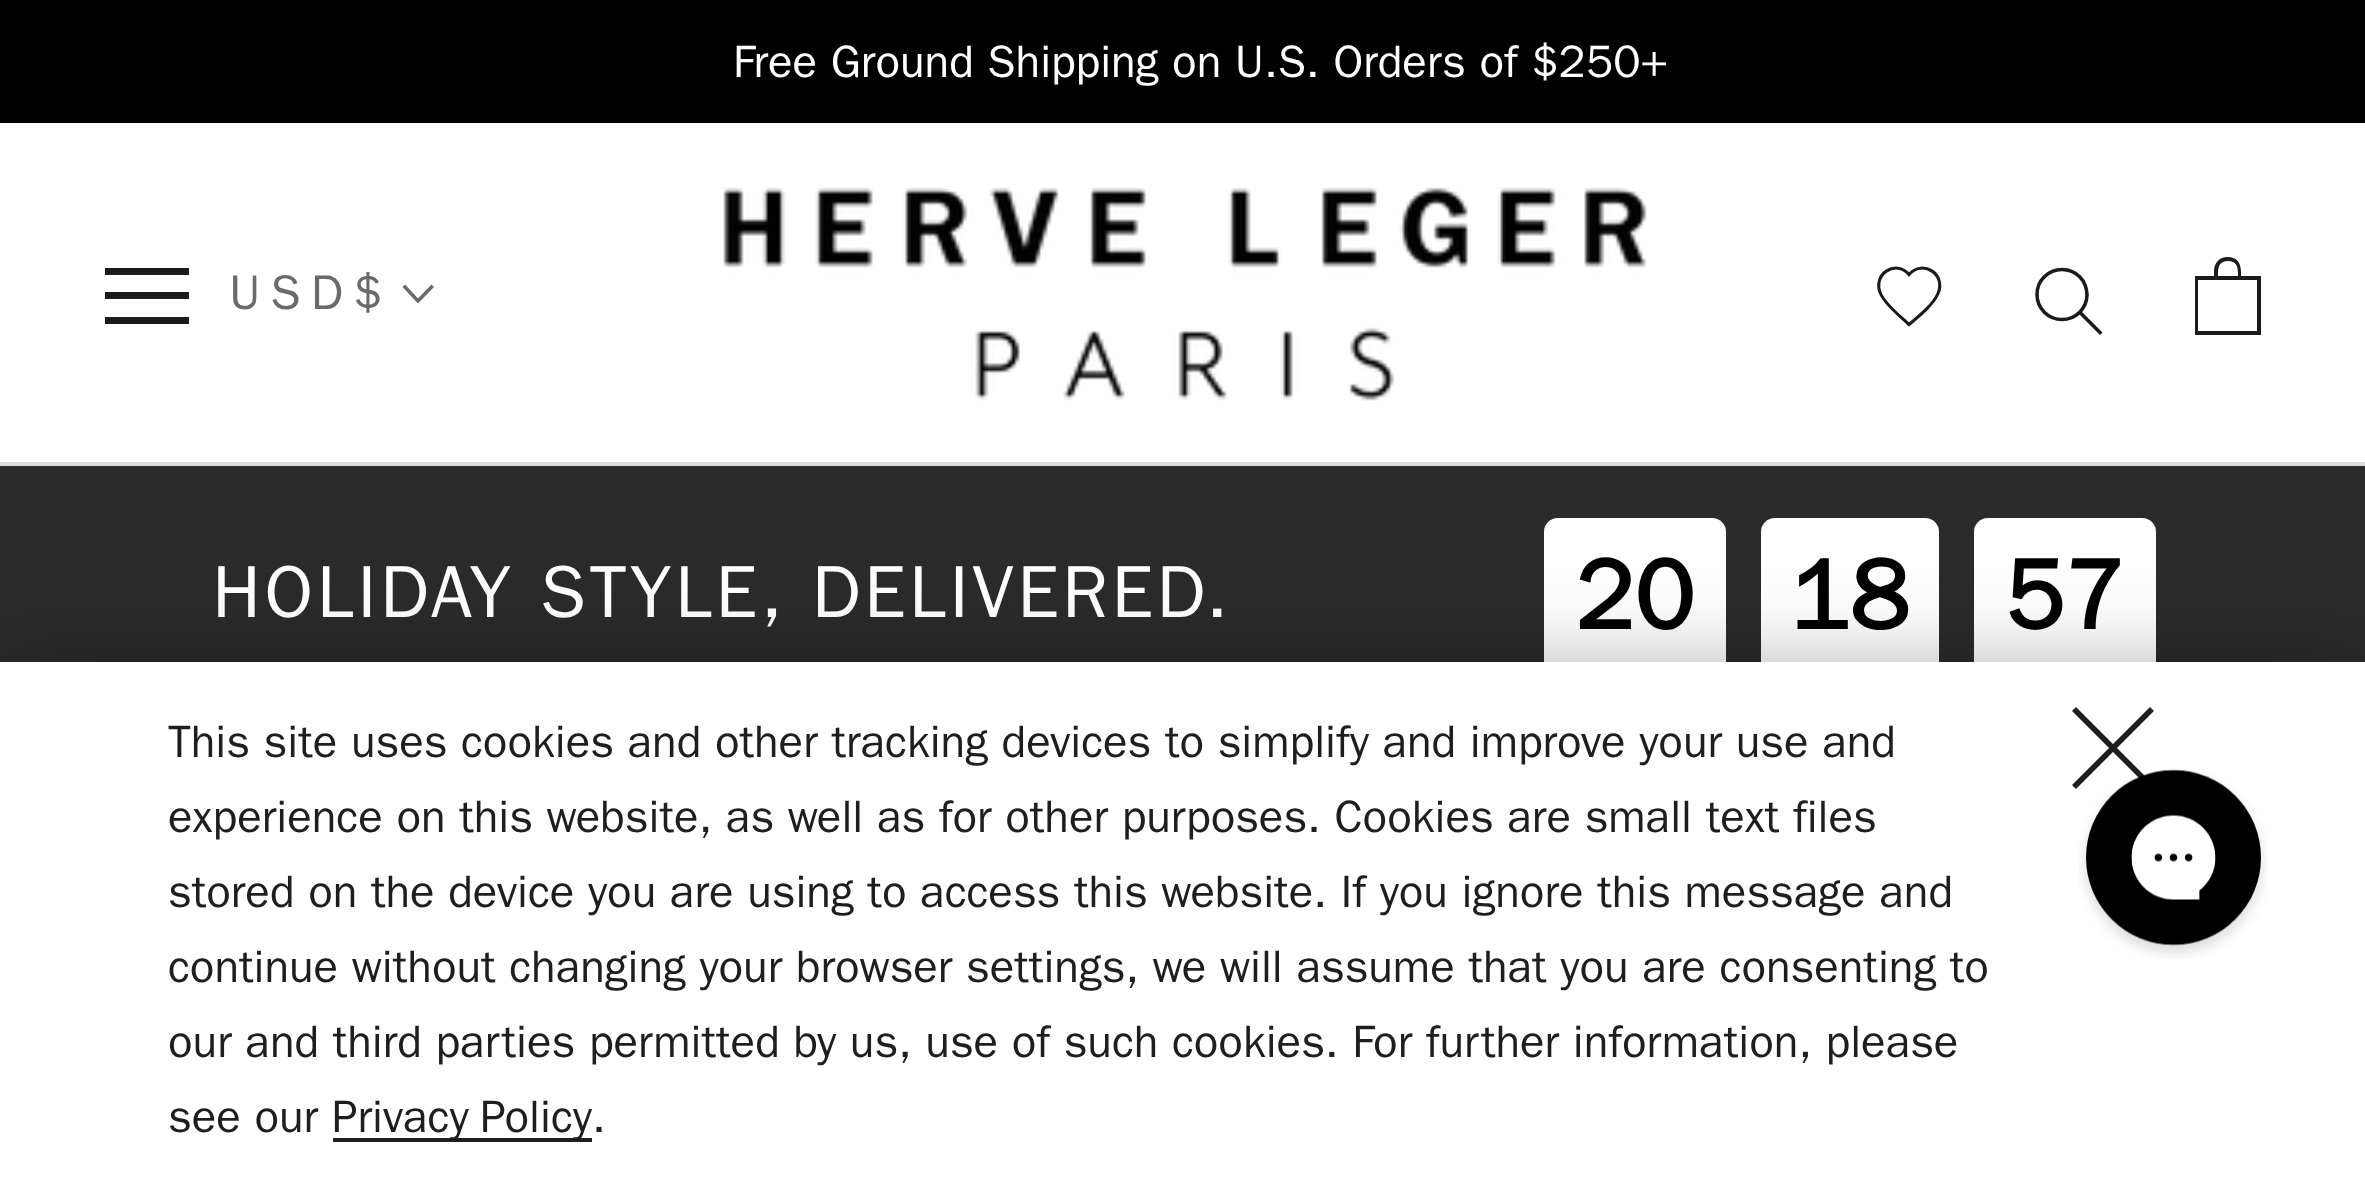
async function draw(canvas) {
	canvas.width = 2365;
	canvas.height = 1194;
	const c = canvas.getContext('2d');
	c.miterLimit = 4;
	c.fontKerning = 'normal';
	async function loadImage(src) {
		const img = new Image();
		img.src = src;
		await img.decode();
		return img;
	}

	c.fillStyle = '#fff';
	c.fillRect(0, 0, 2365, 1194);
	c.fillStyle = '#000';
	c.fillRect(0, 0, 2365, 123);
	c.font = '45.5px "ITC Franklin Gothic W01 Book"';
	c.fillStyle = '#fff';
	c.fillText('Free Ground Shipping on U.S. Orders of $250+', 733, 77);
	c.fillStyle = '#ddd';
	c.fillRect(0, 462, 2365, 4);
	c.fillStyle = '#1c1b1b';
	c.beginPath();
	c.moveTo(105, 324);
	c.lineTo(105, 317);
	c.lineTo(189, 317);
	c.lineTo(189, 324);
	c.closePath();
	c.moveTo(105, 292);
	c.lineTo(189, 292);
	c.lineTo(189, 299);
	c.lineTo(105, 299);
	c.closePath();
	c.moveTo(105, 268);
	c.lineTo(189, 268);
	c.lineTo(189, 275);
	c.lineTo(105, 275);
	c.closePath();
	c.fill();
	c.letterSpacing = '10px';
	c.font = '49px "ITC Franklin Gothic W01 Book"';
	c.fillStyle = '#6a6a6a';
	c.fillText('USD$', 229, 309);
	c.beginPath();
	c.moveTo(431.5, 287);
	c.lineTo(418, 301);
	c.lineTo(405, 287);
	c.strokeStyle = '#6a6a6a';
	c.lineWidth = 3.5;
	c.lineCap = 'square';
	c.stroke();
	c.drawImage(await loadImage('img1.png'), 723, 187, 924, 214);
	c.beginPath();
	c.moveTo(1909, 324.5);
	c.bezierCurveTo(1899.5, 315.5, 1885.5, 305, 1880.5, 293.5);
	c.bezierCurveTo(1872, 274, 1896, 259, 1909, 274.5);
	c.bezierCurveTo(1922.5, 259, 1946.5, 274, 1938, 293.5);
	c.bezierCurveTo(1933, 305, 1919, 316, 1909, 324.5);
	c.closePath();
	c.strokeStyle = '#1c1b1b';
	c.lineWidth = 3.1;
	c.lineCap = 'butt';
	c.stroke();
	c.beginPath();
	c.moveTo(2100, 332.5);
	c.lineTo(2080, 312.5);
	c.lineWidth = 3.5;
	c.lineCap = 'square';
	c.stroke();
	c.beginPath();
	c.arc(2062, 294.5, 25, 0, 2 * Math.PI);
	c.stroke();
	c.save();
	c.beginPath();
	c.rect(2195, 256, 66, 80);
	c.clip();
	c.fillStyle = '#1c1b1b';
	c.beginPath();
	c.moveTo(2194, 335);
	c.lineTo(2194, 276);
	c.lineTo(2214, 276);
	c.lineTo(2214, 272);
	c.bezierCurveTo(2214, 263, 2219, 257, 2228, 257);
	c.bezierCurveTo(2236, 257, 2241, 262, 2241, 272);
	c.lineTo(2241, 276);
	c.lineTo(2261, 276);
	c.lineTo(2261, 280);
	c.lineTo(2198, 280);
	c.lineTo(2198, 331);
	c.lineTo(2257, 331);
	c.lineTo(2257, 280);
	c.lineTo(2261, 280);
	c.lineTo(2261, 335);
	c.closePath();
	c.moveTo(2238, 274);
	c.bezierCurveTo(2238, 266, 2236, 261, 2228, 261);
	c.bezierCurveTo(2220, 261, 2218, 266, 2218, 274);
	c.lineTo(2218, 276);
	c.lineTo(2238, 276);
	c.closePath();
	c.fill();
	c.restore();
	c.fillStyle = '#2b2b2b';
	c.fillRect(0, 466, 2365, 196);
	c.letterSpacing = '3.5px';
	c.font = '74px "ITC Franklin Gothic W01 Book"';
	c.fillStyle = '#fff';
	c.fillText('HOLIDAY STYLE, DELIVERED.', 212, 617);
	c.beginPath();
	c.roundRect(1544, 518, 182, 161, 14);
	c.fill();
	c.letterSpacing = '0px';
	c.font = 'bold 99px "ITC Franklin Gothic W01 Book"';
	c.fillStyle = '#000';
	c.fillText('20', 1575, 629);
	c.fillStyle = '#fff';
	c.beginPath();
	c.roundRect(1761, 518, 178, 161, 14);
	c.fill();
	c.fillStyle = '#000';
	c.fillText('18', 1790, 629);
	c.fillStyle = '#fff';
	c.beginPath();
	c.roundRect(1974, 518, 182, 161, 14);
	c.fill();
	c.fillStyle = '#000';
	c.fillText('57', 2005, 629);
	c.fillStyle = '#00000054';
	c.filter = 'blur(44px)';
	c.beginPath();
	c.rect(0, 669, 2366, 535);
	c.fill();
	c.filter = 'none';
	c.fillStyle = '#fff';
	c.fillRect(0, 662, 2365, 532);
	c.font = '45.5px "ITC Franklin Gothic W01 Book"';
	c.fillStyle = '#1e1e1e';
	for (const [text, x, y] of [
		['This site uses cookies and other tracking devices to simplify and improve your use and', 168, 757],
		['experience on this website, as well as for other purposes. Cookies are small text files', 168, 832],
		['stored on the device you are using to access this website. If you ignore this message and', 168, 907],
		['continue without changing your browser settings, we will assume that you are consenting to', 168, 982],
		['our and third parties permitted by us, use of such cookies. For further information, please', 168, 1057],
		['see our', 168, 1132],
	]) {
		c.fillText(text, x, y);
	}
	c.fillRect(333, 1138, 259, 4);
	c.wordSpacing = '-2px';
	c.fillText('Privacy Policy', 332, 1132);
	c.wordSpacing = '0px';
	c.fillText('.', 592, 1132);
	c.beginPath();
	c.moveTo(2152, 709);
	c.lineTo(2074, 787);
	c.moveTo(2152, 787);
	c.lineTo(2074, 709);
	c.strokeStyle = '#1e1e1e';
	c.lineWidth = 5.6;
	c.lineCap = 'butt';
	c.stroke();
	c.drawImage(await loadImage('img2.png'), 2079, 769, 189, 190);
}

draw(document.querySelector('canvas'));
